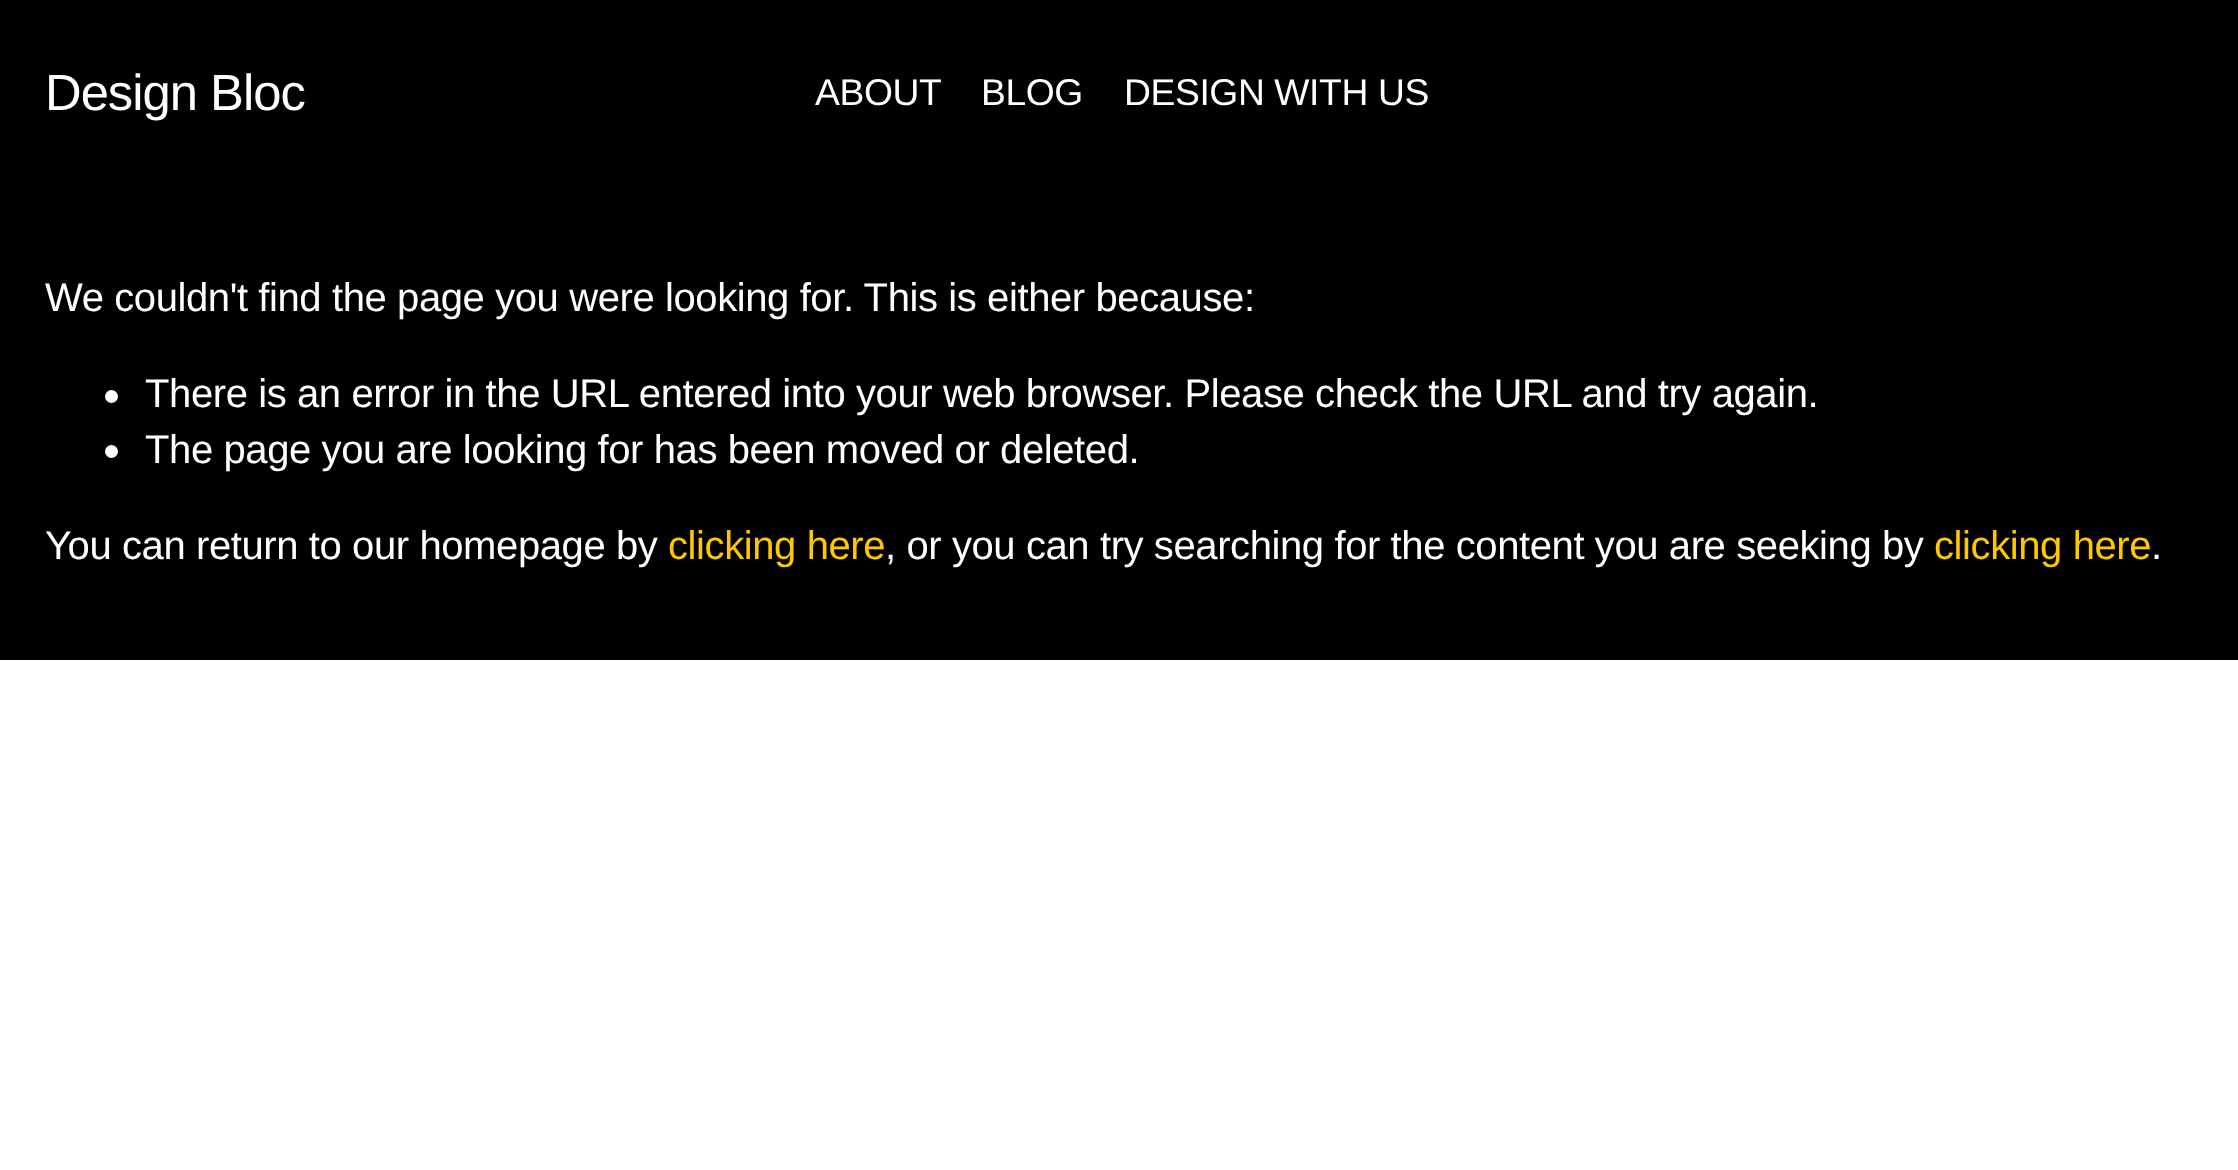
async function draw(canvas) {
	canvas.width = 2238;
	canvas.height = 1170;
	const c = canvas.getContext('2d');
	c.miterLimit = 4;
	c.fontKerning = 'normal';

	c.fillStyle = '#000';
	c.fillRect(0, 0, 2238, 1170);
	c.letterSpacing = '-1px';
	c.font = '50.75px Liberation Sans';
	c.fillStyle = '#fff';
	c.fillText('Design Bloc', 45, 110);
	c.letterSpacing = '-0.4px';
	c.font = '37.25px Liberation Sans';
	for (const [text, x, y] of [
		['ABOUT', 815, 105],
		['BLOG', 981, 105],
		['DESIGN WITH US', 1124, 105],
	]) {
		c.fillText(text, x, y);
	}
	c.font = '40px Liberation Sans';
	c.fillText('We couldn\'t find the page you were looking for. This is either because:', 45, 311);
	c.beginPath();
	c.arc(111.5, 396.5, 6.5, 0, 2 * Math.PI);
	c.fill();
	c.fillText('There is an error in the URL entered into your web browser. Please check the URL and try again.', 145, 407);
	c.beginPath();
	c.arc(111.5, 451.5, 6.5, 0, 2 * Math.PI);
	c.fill();
	c.fillText('The page you are looking for has been moved or deleted.', 145, 463);
	c.fillText('You can return to our homepage by', 45, 559);
	c.fillStyle = '#ffc700';
	c.fillText('clicking here', 668, 559);
	c.fillStyle = '#fff';
	c.fillText(', or you can try searching for the content you are seeking by', 885, 559);
	c.fillStyle = '#ffc700';
	c.fillText('clicking here', 1934, 559);
	c.fillStyle = '#fff';
	c.fillText('.', 2151, 559);
	c.fillRect(0, 660, 2238, 510);
}

draw(document.querySelector('canvas'));
